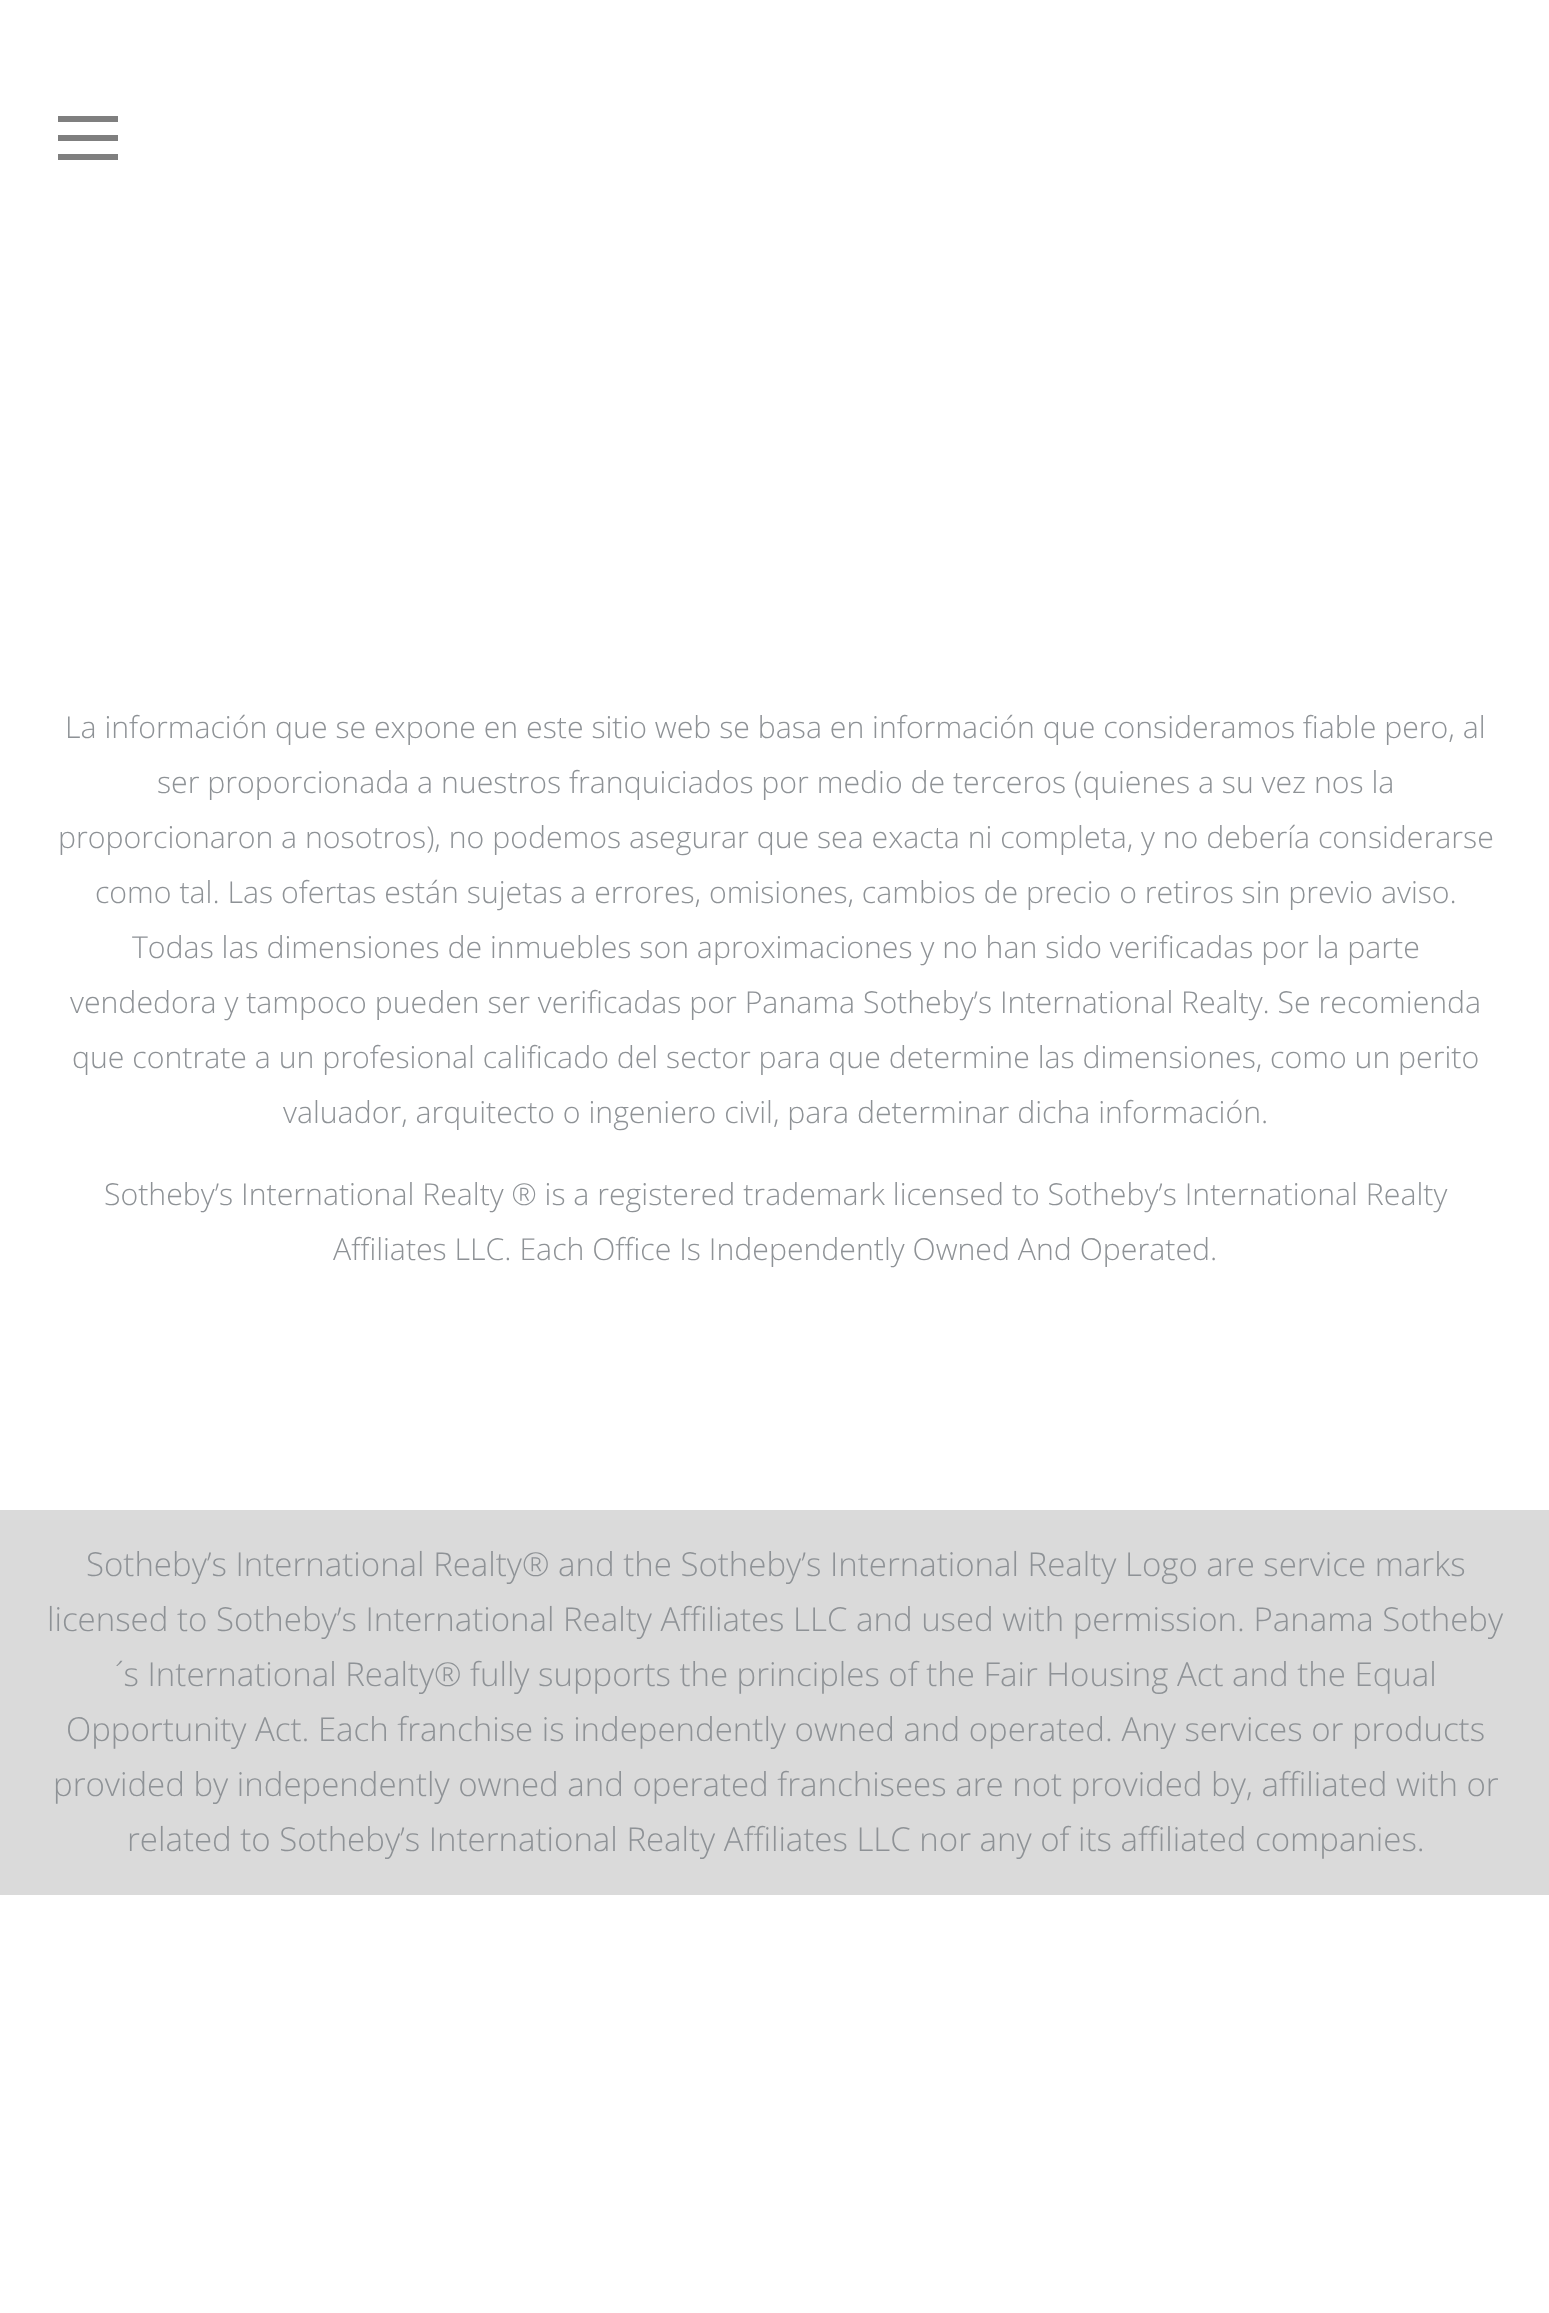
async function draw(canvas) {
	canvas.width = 1549;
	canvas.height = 2313;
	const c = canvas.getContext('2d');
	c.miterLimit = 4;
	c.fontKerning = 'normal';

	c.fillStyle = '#fff';
	c.fillRect(0, 0, 1549, 2313);
	for (const [x, y, w, h, color] of [
		[58, 116, 60, 6, '#7f7f7f'],
		[58, 135, 60, 6, '#7f7f7f'],
		[58, 154, 60, 6, '#7f7f7f'],
	]) {
		c.fillStyle = color;
		c.fillRect(x, y, w, h);
	}
	c.font = '300 30.25px Open Sans';
	c.fillStyle = '#8e9296';
	for (const [text, x, y] of [
		['La información que se expone en este sitio web se basa en información que consideramos fiable pero, al', 65, 738],
		['ser proporcionada a nuestros franquiciados por medio de terceros (quienes a su vez nos la', 157, 793],
		['proporcionaron a nosotros), no podemos asegurar que sea exacta ni completa, y no debería considerarse', 58, 848],
		['como tal. Las ofertas están sujetas a errores, omisiones, cambios de precio o retiros sin previo aviso.', 95, 903],
		['Todas las dimensiones de inmuebles son aproximaciones y no han sido verificadas por la parte', 132, 958],
		['vendedora y tampoco pueden ser verificadas por Panama Sotheby’s International Realty. Se recomienda', 70, 1013],
		['que contrate a un profesional calificado del sector para que determine las dimensiones, como un perito', 72, 1068],
		['valuador, arquitecto o ingeniero civil, para determinar dicha información.', 283, 1123],
		['Sotheby’s International Realty ® is a registered trademark licensed to Sotheby’s International Realty', 104, 1205],
		['Affiliates LLC. Each Office Is Independently Owned And Operated.', 333, 1260],
	]) {
		c.fillText(text, x, y);
	}
	c.fillStyle = '#dadada';
	c.fillRect(0, 1510, 1549, 385);
	c.font = '300 33px Open Sans';
	c.fillStyle = '#8e9296';
	for (const [text, x, y] of [
		['Sotheby’s International Realty® and the Sotheby’s International Realty Logo are service marks', 86, 1576],
		['licensed to Sotheby’s International Realty Affiliates LLC and used with permission. Panama Sotheby', 47, 1631],
		['´s International Realty® fully supports the principles of the Fair Housing Act and the Equal', 115, 1686],
		['Opportunity Act. Each franchise is independently owned and operated. Any services or products', 66, 1741],
		['provided by independently owned and operated franchisees are not provided by, affiliated with or', 53, 1796],
		['related to Sotheby’s International Realty Affiliates LLC nor any of its affiliated companies.', 127, 1851],
	]) {
		c.fillText(text, x, y);
	}
}

draw(document.querySelector('canvas'));
